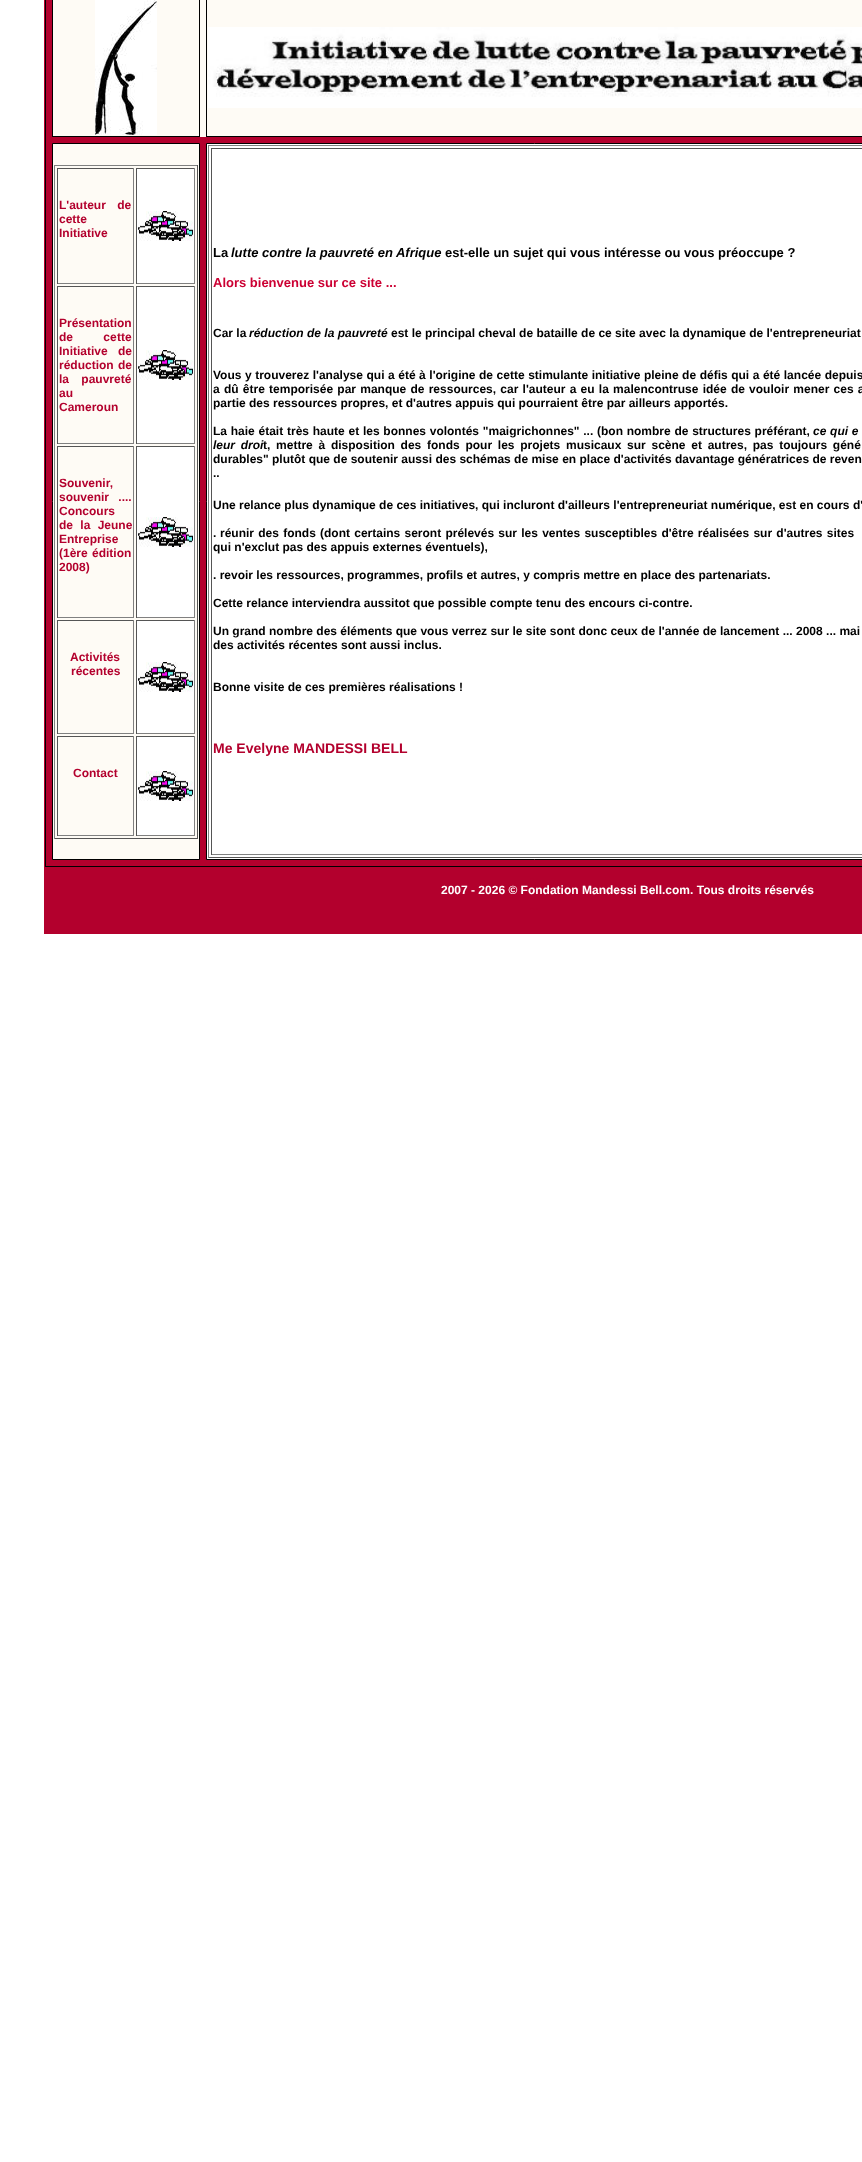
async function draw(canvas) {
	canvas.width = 862;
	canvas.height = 2162;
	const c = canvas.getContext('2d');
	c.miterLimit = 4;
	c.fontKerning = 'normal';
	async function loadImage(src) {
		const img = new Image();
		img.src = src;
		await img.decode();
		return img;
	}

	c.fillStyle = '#fff';
	c.fillRect(0, 0, 862, 2162);
	c.fillStyle = '#b3002d';
	c.fillRect(44, 0, 818, 934);
	c.strokeStyle = '#000';
	c.strokeRect(45.5, -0.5, 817, 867);
	c.fillStyle = '#fefbf5';
	c.fillRect(53, 0, 809, 137);
	c.strokeRect(52.5, -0.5, 147, 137);
	c.drawImage(await loadImage('img1.png'), 95, 0, 62, 135);
	c.strokeRect(206.5, -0.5, 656, 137);
	c.drawImage(await loadImage('img2.png'), 208, 27, 654, 81);
	c.beginPath();
	c.rect(52.5, 143.5, 147, 716);
	c.fill();
	c.stroke();
	for (const [x, y, w, h, color] of [
		[54, 165, 144, 1, '#808080'],
		[197, 165, 1, 674, '#555'],
		[54, 838, 144, 1, '#555'],
		[54, 165, 1, 674, '#808080'],
		[57, 168, 77, 1, '#555'],
		[133, 168, 1, 116, '#808080'],
		[57, 283, 77, 1, '#808080'],
		[57, 168, 1, 116, '#555'],
	]) {
		c.fillStyle = color;
		c.fillRect(x, y, w, h);
	}
	c.wordSpacing = '8px';
	c.font = 'bold 12px Liberation Sans';
	c.fillStyle = '#b3002d';
	c.fillText('L\'auteur de', 59, 209);
	c.wordSpacing = '0px';
	c.fillText('cette', 59, 223);
	c.fillText('Initiative', 59, 237);
	for (const [x, y, w, h, color] of [
		[137, 169, 57, 114, '#fff'],
		[136, 168, 59, 1, '#555'],
		[194, 168, 1, 116, '#808080'],
		[136, 283, 59, 1, '#808080'],
		[136, 168, 1, 116, '#555'],
	]) {
		c.fillStyle = color;
		c.fillRect(x, y, w, h);
	}
	c.drawImage(await loadImage('img3.png'), 138, 211, 55, 30);
	for (const [x, y, w, h, color] of [
		[57, 286, 77, 1, '#555'],
		[133, 286, 1, 158, '#808080'],
		[57, 443, 77, 1, '#808080'],
		[57, 286, 1, 158, '#555'],
	]) {
		c.fillStyle = color;
		c.fillRect(x, y, w, h);
	}
	c.fillStyle = '#b3002d';
	c.fillText('Présentation', 59, 327);
	c.wordSpacing = '27px';
	c.fillText('de ce', 59, 341);
	c.wordSpacing = '0px';
	c.fillText('tte', 117, 341);
	c.wordSpacing = '7px';
	c.fillText('Initiative de', 59, 355);
	c.wordSpacing = '1px';
	c.fillText('réduction de', 59, 369);
	c.wordSpacing = '9px';
	c.fillText('la pauvreté', 59, 383);
	c.wordSpacing = '0px';
	c.fillText('au', 59, 397);
	c.fillText('Cameroun', 59, 411);
	for (const [x, y, w, h, color] of [
		[137, 287, 57, 156, '#fff'],
		[136, 286, 59, 1, '#555'],
		[194, 286, 1, 158, '#808080'],
		[136, 443, 59, 1, '#808080'],
		[136, 286, 1, 158, '#555'],
	]) {
		c.fillStyle = color;
		c.fillRect(x, y, w, h);
	}
	c.drawImage(await loadImage('img3.png'), 138, 350, 55, 30);
	for (const [x, y, w, h, color] of [
		[57, 446, 77, 1, '#555'],
		[133, 446, 1, 172, '#808080'],
		[57, 617, 77, 1, '#808080'],
		[57, 446, 1, 172, '#555'],
	]) {
		c.fillStyle = color;
		c.fillRect(x, y, w, h);
	}
	c.fillStyle = '#b3002d';
	c.fillText('Souvenir,', 59, 487);
	c.wordSpacing = '6px';
	c.fillText('souvenir ....', 59, 501);
	c.wordSpacing = '0px';
	c.fillText('Concours', 59, 515);
	c.wordSpacing = '4px';
	c.fillText('de la Jeune', 59, 529);
	c.wordSpacing = '0px';
	c.fillText('Entreprise', 59, 543);
	c.wordSpacing = '1px';
	c.fillText('(1ère édition', 59, 557);
	c.wordSpacing = '0px';
	c.fillText('2008)', 59, 571);
	for (const [x, y, w, h, color] of [
		[137, 447, 57, 170, '#fff'],
		[136, 446, 59, 1, '#555'],
		[194, 446, 1, 172, '#808080'],
		[136, 617, 59, 1, '#808080'],
		[136, 446, 1, 172, '#555'],
	]) {
		c.fillStyle = color;
		c.fillRect(x, y, w, h);
	}
	c.drawImage(await loadImage('img4.png'), 138, 517, 55, 30);
	for (const [x, y, w, h, color] of [
		[57, 620, 77, 1, '#555'],
		[133, 620, 1, 114, '#808080'],
		[57, 733, 77, 1, '#808080'],
		[57, 620, 1, 114, '#555'],
	]) {
		c.fillStyle = color;
		c.fillRect(x, y, w, h);
	}
	c.fillStyle = '#b3002d';
	c.fillText('Activités', 70, 661);
	c.fillText('récentes', 71, 675);
	for (const [x, y, w, h, color] of [
		[137, 621, 57, 112, '#fff'],
		[136, 620, 59, 1, '#555'],
		[194, 620, 1, 114, '#808080'],
		[136, 733, 59, 1, '#808080'],
		[136, 620, 1, 114, '#555'],
	]) {
		c.fillStyle = color;
		c.fillRect(x, y, w, h);
	}
	c.drawImage(await loadImage('img5.png'), 138, 662, 55, 30);
	for (const [x, y, w, h, color] of [
		[57, 736, 77, 1, '#555'],
		[133, 736, 1, 100, '#808080'],
		[57, 835, 77, 1, '#808080'],
		[57, 736, 1, 100, '#555'],
	]) {
		c.fillStyle = color;
		c.fillRect(x, y, w, h);
	}
	c.fillStyle = '#b3002d';
	c.fillText('Contact', 73, 777);
	for (const [x, y, w, h, color] of [
		[137, 737, 57, 98, '#fff'],
		[136, 736, 59, 1, '#555'],
		[194, 736, 1, 100, '#808080'],
		[136, 835, 59, 1, '#808080'],
		[136, 736, 1, 100, '#555'],
	]) {
		c.fillStyle = color;
		c.fillRect(x, y, w, h);
	}
	c.drawImage(await loadImage('img4.png'), 138, 771, 55, 30);
	c.fillStyle = '#fff';
	c.beginPath();
	c.rect(206.5, 143.5, 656, 716);
	c.fill();
	c.stroke();
	for (const [x, y, w, h, color] of [
		[208, 145, 654, 1, '#808080'],
		[208, 857, 654, 1, '#555'],
		[208, 145, 1, 713, '#808080'],
		[211, 148, 651, 1, '#555'],
		[211, 854, 651, 1, '#808080'],
		[211, 148, 1, 707, '#555'],
	]) {
		c.fillStyle = color;
		c.fillRect(x, y, w, h);
	}
	c.font = 'bold 13px Liberation Sans';
	c.fillStyle = '#000';
	c.fillText('La', 213, 257);
	c.font = 'italic bold 13px Liberation Sans';
	c.fillText('lutte contre la pauvreté en Afrique', 231, 257);
	c.font = 'bold 13px Liberation Sans';
	c.fillText('est-elle un sujet qui vous intéresse ou vous préoccupe ?', 445, 257);
	c.fillStyle = '#c03';
	c.fillText('Alors bienvenue sur ce site ...', 213, 287);
	c.font = 'bold 12px Liberation Sans';
	c.fillStyle = '#000';
	c.fillText('Car la', 213, 337);
	c.font = 'italic bold 12px Liberation Sans';
	c.fillText('réduction de la pauvreté', 249, 337);
	c.font = 'bold 12px Liberation Sans';
	c.fillText('est le principal cheval de bataille de ce site avec la dynamique de l\'entrepreneuriat', 391, 337);
	c.wordSpacing = '0.2px';
	c.fillText('Vous y trouverez l\'analyse qui a été à l\'origine de cette stimulante initiative pleine de défis qui a été lancée depuis', 213, 379);
	c.wordSpacing = '0.9px';
	c.fillText('a dû être temporisée par manque de ressources, car l\'auteur a eu la malencontruse idée de vouloir mener ces a', 213, 393);
	c.wordSpacing = '0px';
	c.fillText('partie des ressources propres, et d\'autres appuis qui pourraient être par ailleurs apportés.', 213, 407);
	c.wordSpacing = '0.4px';
	c.fillText('La haie était', 213, 435);
	c.fillText('très haute et les bonnes volontés "maigrichonnes" ... (bon nombre de structures préférant,', 287, 435);
	c.font = 'italic bold 12px Liberation Sans';
	c.fillText('ce qui e', 813, 435);
	c.wordSpacing = '2.4px';
	c.fillText('leur droi', 213, 449);
	c.font = 'bold 12px Liberation Sans';
	c.fillText('t, mettre à disposition des fonds pour les projets musicaux sur scène et autres, pas toujours géné', 263, 449);
	c.wordSpacing = '0px';
	for (const [text, x, y] of [
		['durables" plutôt que de soutenir aussi des schémas de mise en place d\'activités davantage génératrices de reven', 213, 463],
		['..', 213, 477],
		['Une relance plus dynamique de ces initiatives, qui incluront d\'ailleurs l\'entrepreneuriat numérique, est en cours d\'', 213, 509],
		['.', 213, 537],
	]) {
		c.fillText(text, x, y);
	}
	c.wordSpacing = '0.9px';
	c.fillText('réunir des fonds (dont certains seront prélevés sur les ventes susceptibles d\'être réalisées sur d\'autres sites', 220, 537);
	c.wordSpacing = '0px';
	for (const [text, x, y] of [
		['qui n\'exclut pas des appuis externes éventuels),', 213, 551],
		['. revoir les ressources, programmes, profils et autres, y compris mettre en place des partenariats.', 213, 579],
		['Cette relance interviendra aussitot que possible compte tenu des encours ci-contre.', 213, 607],
		['Un grand nombre des éléments que vous verrez sur le site sont donc ceux de l\'année de lancement ... 2008 ... mai', 213, 635],
		['des activités récentes sont aussi inclus.', 213, 649],
		['Bonne visite de ces premières réalisations !', 213, 691],
	]) {
		c.fillText(text, x, y);
	}
	c.font = 'bold 14px Liberation Sans';
	c.fillStyle = '#b3002d';
	c.fillText('Me Evelyne MANDESSI BELL', 213, 753);
	c.font = 'bold 12px Liberation Sans';
	c.fillStyle = '#fff';
	c.fillText('2007 - 2026 © Fondation', 441, 894);
	c.fillText('Mandessi Bell.com. Tous droits réservés', 582, 894);
}

draw(document.querySelector('canvas'));
